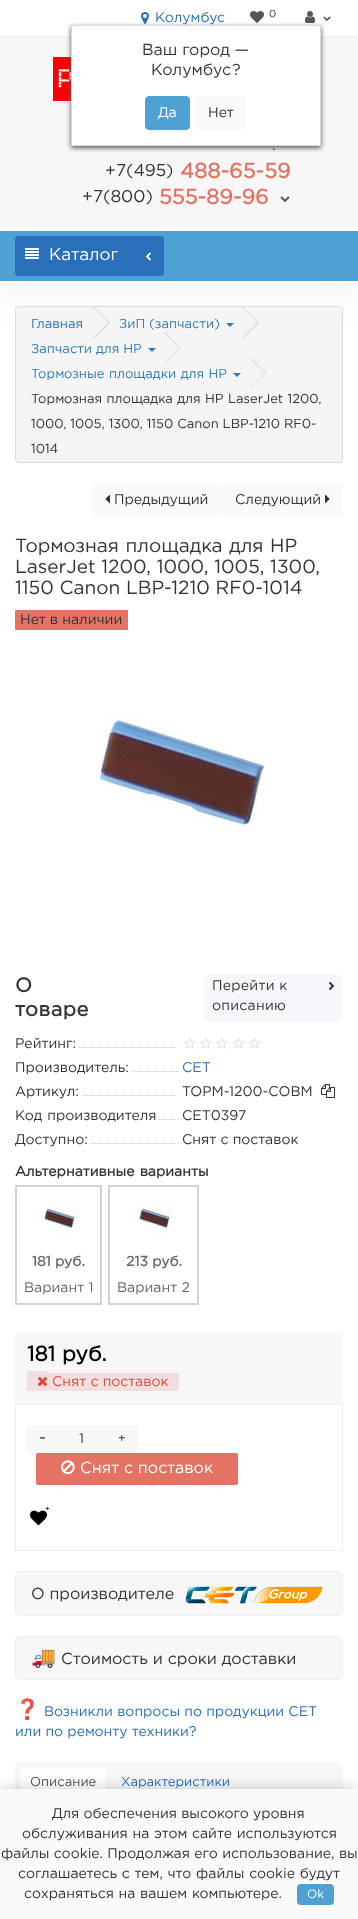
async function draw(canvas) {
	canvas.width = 358;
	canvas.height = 1919;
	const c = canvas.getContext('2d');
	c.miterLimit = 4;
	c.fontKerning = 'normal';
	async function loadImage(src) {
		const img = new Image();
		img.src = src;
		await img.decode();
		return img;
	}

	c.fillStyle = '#fff';
	c.fillRect(0, 0, 358, 1919);
	c.fillStyle = '#ededed';
	c.fillRect(0, 36, 358, 1);
	c.drawImage(await loadImage('img1.png'), 141, 12, 8, 12);
	c.font = '14px Gotham';
	c.fillStyle = '#2a6fba';
	c.fillText('Колумбус', 155, 22);
	c.drawImage(await loadImage('img2.png'), 250, 11, 14, 12);
	c.drawImage(await loadImage('img3.png'), 305, 11, 10, 12);
	c.drawImage(await loadImage('img4.png'), 323, 16, 8, 5);
	c.fillStyle = '#0000000d';
	c.filter = 'blur(25px)';
	c.beginPath();
	c.rect(-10, 221, 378, 70);
	c.fill();
	c.filter = 'none';
	c.fillStyle = '#f7f7f7';
	c.fillRect(0, 37, 358, 194);
	c.drawImage(await loadImage('img5.png'), 53, 57, 18, 44);
	c.fillStyle = '#5b5a5a';
	c.filter = 'blur(2.5px)';
	c.beginPath();
	c.rect(71, 27, 250, 121);
	c.fill();
	c.filter = 'none';
	c.fillStyle = '#fff';
	c.beginPath();
	c.rect(71.5, 25.5, 249, 120);
	c.fill();
	c.strokeStyle = '#dadada';
	c.stroke();
	c.font = '16px Gotham';
	c.fillStyle = '#333';
	for (const [text, x, y] of [
		['Ваш город —', 142, 55],
		['Колумбус', 151, 75],
		['?', 232, 75],
	]) {
		c.fillText(text, x, y);
	}
	c.fillStyle = '#4ea1d3';
	c.beginPath();
	c.roundRect(145.5, 96.5, 44, 33, 3.5);
	c.fill();
	c.strokeStyle = '#4ea1d3';
	c.stroke();
	c.font = '14px Gotham';
	c.fillStyle = '#fff';
	c.fillText('Да', 158, 117);
	c.fillStyle = '#fafafa';
	c.beginPath();
	c.roundRect(195, 96, 52, 34, 4);
	c.fill();
	c.fillStyle = '#333';
	c.fillText('Нет', 208, 117);
	c.font = '10px Gotham';
	c.fillText('0', 269, 17);
	c.font = '14px Gotham';
	c.fillText('.', 272, 150);
	c.font = '17px Gotham';
	c.fillText('+7(495)', 105, 176);
	c.font = 'bold 21px Gotham';
	c.fillStyle = '#e47364';
	c.fillText('488-65-59', 180, 178);
	c.font = '17px Gotham';
	c.fillStyle = '#333';
	c.fillText('+7(800)', 82, 202);
	c.font = 'bold 21px Gotham';
	c.fillStyle = '#e47364';
	c.fillText('555-89-96', 159, 204);
	c.drawImage(await loadImage('img6.png'), 280, 196, 10, 7);
	c.fillStyle = '#4ea1d3';
	c.fillRect(0, 231, 358, 50);
	c.fillStyle = '#2a6fba';
	c.beginPath();
	c.roundRect(15, 236, 149, 40, 4);
	c.fill();
	c.drawImage(await loadImage('img7.png'), 25, 248, 14, 11);
	c.font = '17px Gotham';
	c.fillStyle = '#fff';
	c.fillText('Каталог', 49, 260);
	c.drawImage(await loadImage('img8.png'), 145, 252, 6, 9);
	c.fillStyle = '#f5f5f5';
	c.beginPath();
	c.roundRect(15.5, 306.5, 327, 156, 3.5);
	c.fill();
	c.strokeStyle = '#ddd';
	c.stroke();
	c.font = '13px Gotham';
	c.fillStyle = '#2a6fba';
	c.fillText('Главная', 31, 328);
	c.fillStyle = '#ddd';
	c.beginPath();
	c.moveTo(93, 307.5);
	c.lineTo(93.5, 306.5);
	c.lineTo(110, 323);
	c.lineTo(109, 323.5);
	c.closePath();
	c.fill();
	c.beginPath();
	c.moveTo(93.5, 337.5);
	c.lineTo(109, 322);
	c.lineTo(110, 323);
	c.lineTo(94.5, 338.5);
	c.closePath();
	c.fill();
	c.fillStyle = '#337ab7';
	c.fillText('ЗиП (запчасти)', 119, 328);
	c.beginPath();
	c.moveTo(226, 323);
	c.lineTo(234, 323);
	c.lineTo(230, 327);
	c.closePath();
	c.fill();
	c.fillStyle = '#ddd';
	c.beginPath();
	c.moveTo(242, 307.5);
	c.lineTo(242.5, 306.5);
	c.lineTo(259, 323);
	c.lineTo(258, 323.5);
	c.closePath();
	c.fill();
	c.beginPath();
	c.moveTo(242.5, 337.5);
	c.lineTo(258, 322);
	c.lineTo(259, 323);
	c.lineTo(243, 338.5);
	c.closePath();
	c.fill();
	c.fillStyle = '#337ab7';
	c.fillText('Запчасти для HP', 31, 353);
	c.beginPath();
	c.moveTo(148, 348);
	c.lineTo(156, 348);
	c.lineTo(152, 352);
	c.closePath();
	c.fill();
	c.fillStyle = '#ddd';
	c.beginPath();
	c.moveTo(163.5, 332.5);
	c.lineTo(164.5, 331.5);
	c.lineTo(180.5, 348);
	c.lineTo(180, 348.5);
	c.closePath();
	c.fill();
	c.beginPath();
	c.moveTo(164.5, 363);
	c.lineTo(180, 347.5);
	c.lineTo(180.5, 348);
	c.lineTo(165, 363.5);
	c.closePath();
	c.fill();
	c.wordSpacing = '0.5px';
	c.fillStyle = '#337ab7';
	c.fillText('Тормозные площадки для HP', 31, 378);
	c.beginPath();
	c.moveTo(233, 373);
	c.lineTo(241, 373);
	c.lineTo(237, 377);
	c.closePath();
	c.fill();
	c.fillStyle = '#ddd';
	c.beginPath();
	c.moveTo(249, 357.5);
	c.lineTo(250, 357);
	c.lineTo(266, 373);
	c.lineTo(265.5, 374);
	c.closePath();
	c.fill();
	c.beginPath();
	c.moveTo(250, 388);
	c.lineTo(265.5, 372.5);
	c.lineTo(266, 373);
	c.lineTo(250.5, 388.5);
	c.closePath();
	c.fill();
	c.fillStyle = '#333';
	c.fillText('Тормозная площадка для HP LaserJet 1200,', 31, 403);
	c.wordSpacing = '0px';
	c.fillText('1000, 1005, 1300, 1150 Canon LBP-1210 RF0-', 31, 428);
	c.fillText('1014', 31, 453);
	c.fillStyle = '#fafafa';
	c.beginPath();
	c.roundRect(92, 483, 130, 34, 4);
	c.fill();
	c.drawImage(await loadImage('img9.png'), 105, 495, 5, 8);
	c.font = '14px Gotham';
	c.fillStyle = '#333';
	c.fillText('Предыдущий', 114, 504);
	c.fillStyle = '#fafafa';
	c.beginPath();
	c.roundRect(222, 483, 121, 34, 4);
	c.fill();
	c.fillStyle = '#333';
	c.fillText('Следующий', 235, 504);
	c.drawImage(await loadImage('img10.png'), 325, 495, 5, 8);
	c.wordSpacing = '1px';
	c.font = '19px Gotham';
	c.fillText('Тормозная площадка для HP', 15, 552);
	c.wordSpacing = '0px';
	c.fillText('LaserJet 1200, 1000, 1005, 1300,', 15, 573);
	c.fillText('1150 Canon LBP-1210 RF0-1014', 15, 594);
	c.fillStyle = '#e47364';
	c.beginPath();
	c.roundRect(15, 610, 113, 20, 1);
	c.fill();
	c.font = '14px Gotham';
	c.fillStyle = '#333';
	c.fillText('Нет в наличии', 20, 624);
	c.drawImage(await loadImage('img11.png'), 94, 715, 171, 118);
	c.letterSpacing = '0.5px';
	c.font = 'bold 20px Gotham';
	c.fillText('О', 15, 992);
	c.fillText('товаре', 15, 1016);
	c.fillStyle = '#f5f7fa';
	c.beginPath();
	c.roundRect(204, 974, 139, 48, 8);
	c.fill();
	c.letterSpacing = '0.25px';
	c.font = '14px Gotham';
	c.fillStyle = '#333';
	c.fillText('Перейти к', 212, 990);
	c.fillText('описанию', 212, 1010);
	c.drawImage(await loadImage('img12.png'), 329, 982, 5, 8);
	c.letterSpacing = '0px';
	c.fillText('Рейтинг:', 15, 1048);
	c.save();
	c.beginPath();
	c.rect(15, 1032, 164, 24);
	c.clip();
	c.beginPath();
	c.moveTo(79, 1047.5);
	c.lineTo(243, 1047.5);
	c.strokeStyle = '#ccc';
	c.setLineDash([1, 1]);
	c.stroke();
	c.restore();
	c.drawImage(await loadImage('img13.png'), 184, 1038, 11, 11);
	c.drawImage(await loadImage('img13.png'), 200, 1038, 11, 11);
	c.drawImage(await loadImage('img13.png'), 216, 1038, 11, 11);
	c.drawImage(await loadImage('img13.png'), 233, 1038, 11, 11);
	c.drawImage(await loadImage('img13.png'), 249, 1038, 11, 11);
	c.fillText('Производитель:', 15, 1072);
	c.save();
	c.beginPath();
	c.rect(15, 1056, 164, 24);
	c.clip();
	c.beginPath();
	c.moveTo(132, 1071.5);
	c.lineTo(296, 1071.5);
	c.strokeStyle = '#ccc';
	c.setLineDash([1, 1]);
	c.stroke();
	c.restore();
	c.fillStyle = '#2a6fba';
	c.fillText('CET', 182, 1072);
	c.fillStyle = '#333';
	c.fillText('Артикул:', 15, 1096);
	c.save();
	c.beginPath();
	c.rect(15, 1080, 164, 24);
	c.clip();
	c.beginPath();
	c.moveTo(83, 1095.5);
	c.lineTo(247, 1095.5);
	c.strokeStyle = '#ccc';
	c.setLineDash([1, 1]);
	c.stroke();
	c.restore();
	c.fillText('ТОРМ-1200-СОВМ', 182, 1096);
	c.drawImage(await loadImage('img14.png'), 321, 1084, 14, 14);
	c.wordSpacing = '1px';
	c.fillText('Код производителя', 15, 1120);
	c.save();
	c.beginPath();
	c.rect(15, 1104, 164, 24);
	c.clip();
	c.beginPath();
	c.moveTo(159, 1119.5);
	c.lineTo(323, 1119.5);
	c.strokeStyle = '#ccc';
	c.setLineDash([1, 1]);
	c.stroke();
	c.restore();
	c.wordSpacing = '0px';
	c.fillText('CET0397', 182, 1120);
	c.fillText('Доступно:', 15, 1144);
	c.save();
	c.beginPath();
	c.rect(15, 1128, 164, 24);
	c.clip();
	c.beginPath();
	c.moveTo(91, 1143.5);
	c.lineTo(255, 1143.5);
	c.strokeStyle = '#ccc';
	c.setLineDash([1, 1]);
	c.stroke();
	c.restore();
	c.fillText('Снят с поставок', 182, 1144);
	c.wordSpacing = '1px';
	c.font = 'bold 14px Gotham';
	c.fillText('Альтернативные варианты', 15, 1176);
	c.strokeStyle = '#d3d3d3';
	c.lineWidth = 2;
	c.strokeRect(16, 1186, 85, 118);
	c.drawImage(await loadImage('img15.png'), 43, 1204, 35, 33);
	c.wordSpacing = '0px';
	c.fillStyle = '#666';
	c.fillText('181 руб.', 32, 1266);
	c.font = '14px Gotham';
	c.fillText('Вариант 1', 24, 1292);
	c.strokeRect(109, 1186, 89, 118);
	c.drawImage(await loadImage('img15.png'), 138, 1204, 35, 33);
	c.font = 'bold 14px Gotham';
	c.fillText('213 руб.', 126, 1266);
	c.font = '14px Gotham';
	c.fillText('Вариант 2', 117, 1292);
	c.fillStyle = '#f7f7f7';
	c.beginPath();
	c.roundRect(15, 1333, 328, 218, 4);
	c.fill();
	c.wordSpacing = '0.5px';
	c.font = 'bold 21px Gotham';
	c.fillStyle = '#000';
	c.fillText('181 руб.', 27, 1361);
	c.fillStyle = '#f2dede';
	c.beginPath();
	c.roundRect(27, 1371, 21, 20, [2, 0, 0, 2]);
	c.fill();
	c.beginPath();
	c.roundRect(48, 1373, 131, 18, [0, 2, 2, 0]);
	c.fill();
	c.drawImage(await loadImage('img16.png'), 37, 1376, 11, 11);
	c.wordSpacing = '0px';
	c.font = '14px Gotham';
	c.fillStyle = '#dd4b39';
	c.fillText('Снят с поставок', 52, 1386);
	c.fillStyle = '#fff';
	c.beginPath();
	c.rect(15.5, 1404.5, 327, 146);
	c.fill();
	c.strokeStyle = '#eee';
	c.lineWidth = 1;
	c.stroke();
	c.beginPath();
	c.roundRect(26.5, 1425.5, 111, 27, 3.5);
	c.strokeStyle = '#f7f7f7';
	c.stroke();
	c.fillStyle = '#f7f7f7';
	c.fillRect(27, 1426, 80, 26);
	c.fillStyle = '#333';
	c.fillText('1', 79, 1443);
	c.font = '17px Gotham';
	c.fillText('-', 39, 1443);
	c.fillStyle = '#f7f7f7';
	c.fillRect(107, 1426, 30, 26);
	c.font = '12px Gotham';
	c.fillStyle = '#333';
	c.fillText('+', 118, 1442);
	c.fillStyle = '#e47364';
	c.beginPath();
	c.roundRect(36, 1453, 202, 32, 2);
	c.fill();
	c.drawImage(await loadImage('img17.png'), 61, 1460, 14, 15);
	c.font = '16px Gotham';
	c.fillStyle = '#fff';
	c.fillText('Снят с поставок', 80, 1473);
	c.drawImage(await loadImage('img18.png'), 30, 1510, 17, 16);
	c.font = 'bold 8px Liberation Serif';
	c.fillStyle = '#000';
	c.fillText('+', 45, 1511);
	c.beginPath();
	c.roundRect(15.5, 1571.5, 327, 44, 3.5);
	c.strokeStyle = '#ededed';
	c.stroke();
	c.fillStyle = '#f7f7f7';
	c.beginPath();
	c.roundRect(16, 1572, 326, 43, 3);
	c.fill();
	c.font = '16px Gotham';
	c.fillStyle = '#333';
	c.fillText('О производителе', 31, 1599);
	c.drawImage(await loadImage('img19.png'), 185, 1586, 138, 18);
	c.beginPath();
	c.roundRect(15.5, 1636.5, 327, 43, 3.5);
	c.stroke();
	c.fillStyle = '#f7f7f7';
	c.beginPath();
	c.roundRect(16, 1637, 326, 42, 3);
	c.fill();
	c.font = '20px Noto Color Emoji';
	c.fillStyle = '#7cb342';
	c.fillText('🚚', 31, 1664);
	c.font = '16px Gotham';
	c.fillStyle = '#333';
	c.fillText('Стоимость и сроки доставки', 61, 1664);
	c.font = '20px Noto Color Emoji';
	c.fillStyle = '#7cb342';
	c.fillText('❓', 15, 1716);
	c.font = '14px Gotham';
	c.fillStyle = '#2a6fba';
	c.fillText('Возникли вопросы по продукции CET', 44, 1716);
	c.fillText('или по ремонту техники?', 15, 1736);
	c.fillStyle = '#f7f7f7';
	c.beginPath();
	c.roundRect(15, 1762, 328, 73, 4);
	c.fill();
	c.fillStyle = '#fff';
	c.beginPath();
	c.roundRect(20, 1769, 86, 28, 4);
	c.fill();
	c.font = '13px Gotham';
	c.fillStyle = '#555';
	c.fillText('Описание', 30, 1786);
	c.fillStyle = '#2a6fba';
	c.fillText('Характеристики', 121, 1786);
	c.fillStyle = '#00000033';
	c.filter = 'blur(7.5px)';
	c.beginPath();
	c.rect(0, 1789, 358, 130);
	c.fill();
	c.filter = 'none';
	c.fillStyle = '#fafafa';
	c.fillRect(0, 1789, 358, 130);
	c.font = '14px Gotham';
	c.fillStyle = '#333';
	c.fillText('Для обеспечения высокого уровня', 52, 1818);
	c.wordSpacing = '0.5px';
	c.fillText('обслуживания на этом сайте используются', 22, 1838);
	c.wordSpacing = '0.25px';
	c.fillText('файлы cookie. Продолжая его использование, вы', 1, 1858);
	c.wordSpacing = '0.5px';
	c.fillText('соглашаетесь с тем, что файлы cookie будут', 18, 1878);
	c.fillText('сохраняться на вашем компьютере.', 24, 1898);
	c.fillStyle = '#4ea1d3';
	c.beginPath();
	c.roundRect(297, 1884, 37, 21, 4);
	c.fill();
	c.wordSpacing = '0px';
	c.font = '12px Gotham';
	c.fillStyle = '#fff';
	c.fillText('Ok', 307, 1898);
}

draw(document.querySelector('canvas'));
